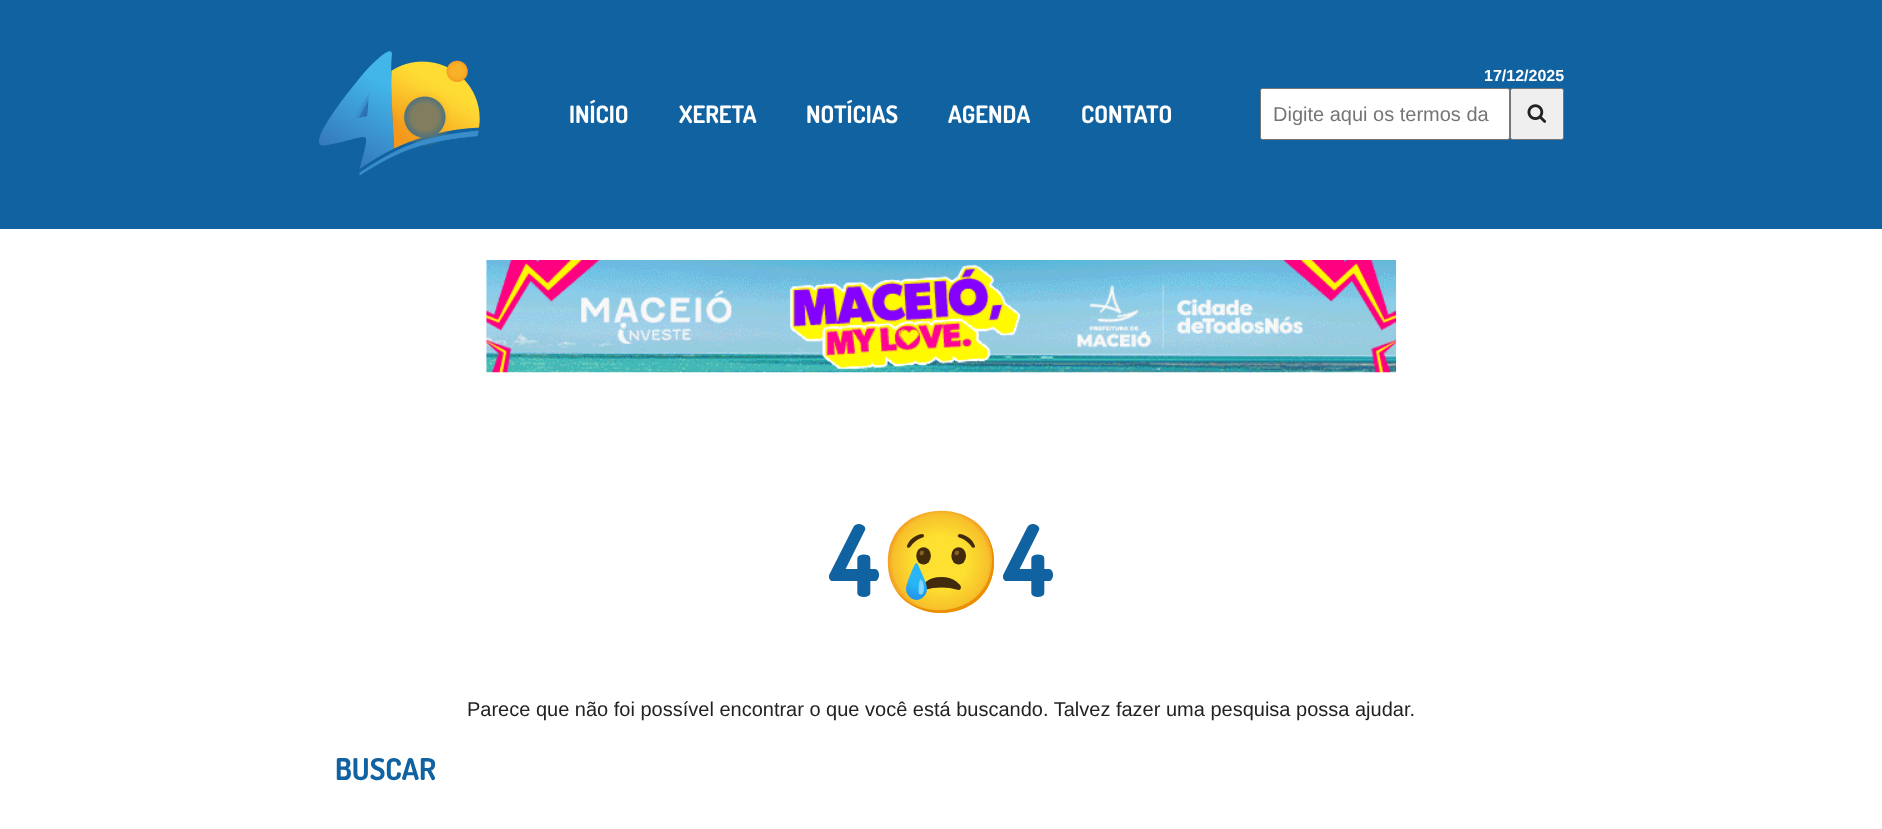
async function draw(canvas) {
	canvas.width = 1882;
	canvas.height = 829;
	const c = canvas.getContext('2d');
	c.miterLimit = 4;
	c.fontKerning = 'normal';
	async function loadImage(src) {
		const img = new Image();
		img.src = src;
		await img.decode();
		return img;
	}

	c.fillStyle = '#fff';
	c.fillRect(0, 0, 1882, 829);
	c.fillStyle = '#1162a1';
	c.fillRect(0, 0, 1882, 229);
	c.drawImage(await loadImage('img1.png'), 319, 51, 161, 125);
	c.font = 'bold 16px Liberation Sans';
	c.fillStyle = '#fff';
	c.fillText('17/12/2025', 1484, 81);
	c.font = 'bold 24px Dosis';
	for (const [text, x, y] of [
		['INÍCIO', 569, 123],
		['XERETA', 679, 123],
		['NOTÍCIAS', 806, 123],
		['AGENDA', 948, 123],
		['CONTATO', 1081, 123],
	]) {
		c.fillText(text, x, y);
	}
	c.beginPath();
	c.roundRect(1260.5, 88.5, 249, 51, 2);
	c.fill();
	c.strokeStyle = '#767676';
	c.stroke();
	c.save();
	c.beginPath();
	c.rect(1273, 103, 225, 22);
	c.clip();
	c.font = '20px Liberation Sans';
	c.fillStyle = '#757575';
	c.fillText('Digite aqui os termos da', 1273, 121);
	c.restore();
	c.fillStyle = '#efefef';
	c.beginPath();
	c.roundRect(1510.5, 88.5, 53, 51, 2);
	c.fill();
	c.stroke();
	c.drawImage(await loadImage('img2.png'), 1527, 104, 20, 19);
	c.drawImage(await loadImage('img3.png'), 486, 260, 911, 113);
	c.font = 'bold 100px Dosis';
	c.fillStyle = '#1162a1';
	c.fillText('4', 829, 597);
	c.font = 'bold 100px Noto Color Emoji';
	c.fillText('😢', 879, 597);
	c.font = 'bold 100px Dosis';
	c.fillText('4', 1003, 597);
	c.font = '20px Liberation Sans';
	c.fillStyle = '#222';
	c.fillText('Parece que não foi possível encontrar o que você está buscando. Talvez fazer uma pesquisa possa ajudar.', 467, 716);
	c.font = 'bold 30px Dosis';
	c.fillStyle = '#1162a1';
	c.fillText('BUSCAR', 335, 780);
}

draw(document.querySelector('canvas'));
